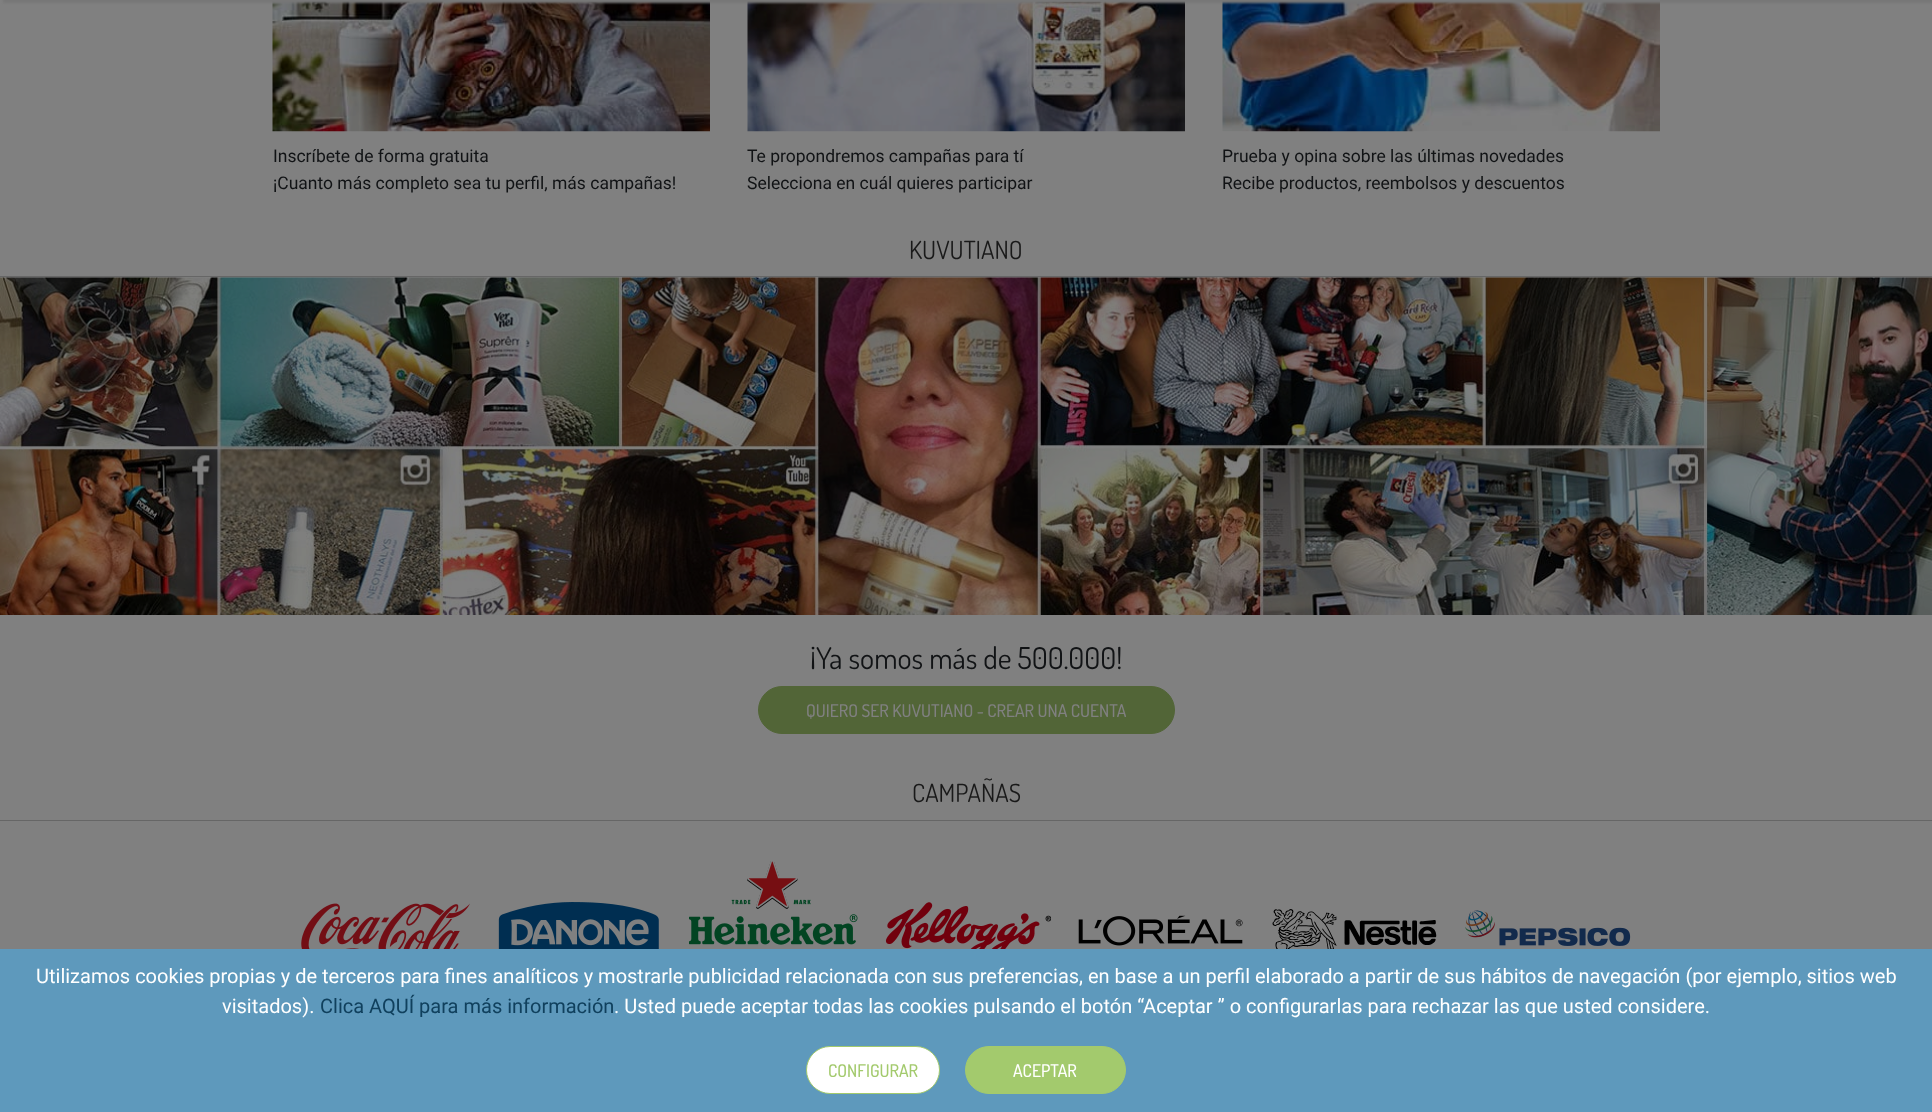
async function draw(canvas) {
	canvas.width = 1932;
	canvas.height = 1112;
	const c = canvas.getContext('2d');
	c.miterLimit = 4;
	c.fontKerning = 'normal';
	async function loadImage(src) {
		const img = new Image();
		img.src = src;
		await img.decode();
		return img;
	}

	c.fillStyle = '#808080';
	c.fillRect(0, 0, 1932, 1112);
	c.drawImage(await loadImage('img1.png'), 272, 1, 438, 131);
	c.drawImage(await loadImage('img2.png'), 747, 1, 438, 131);
	c.drawImage(await loadImage('img3.png'), 1222, 1, 438, 131);
	c.fillStyle = '#777';
	c.filter = 'blur(1px)';
	c.beginPath();
	c.rect(3, -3, 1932, 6);
	c.fill();
	c.filter = 'none';
	c.font = '17.5px Roboto';
	c.fillStyle = '#111315';
	for (const [text, x, y] of [
		['Inscríbete de forma gratuita', 273, 162],
		['¡Cuanto más completo sea tu perfil, más campañas!', 273, 189],
		['Te propondremos campañas para tí', 747, 162],
		['Selecciona en cuál quieres participar', 747, 189],
		['Prueba y opina sobre las últimas novedades', 1222, 162],
		['Recibe productos, reembolsos y descuentos', 1222, 189],
	]) {
		c.fillText(text, x, y);
	}
	c.fillStyle = '#666';
	c.fillRect(0, 276, 1932, 1);
	c.font = '25px Dosis';
	c.fillStyle = '#191919';
	c.fillText('KUVUTIANO', 909, 259);
	c.drawImage(await loadImage('img4.png'), 0, 277, 1932, 338);
	c.font = '30px Dosis';
	c.fillStyle = '#111315';
	c.fillText('¡Ya somos más de 500.000!', 810, 669);
	c.fillStyle = '#526537';
	c.beginPath();
	c.roundRect(758.5, 686.5, 416, 47, 23.5);
	c.fill();
	c.strokeStyle = '#526537';
	c.stroke();
	c.font = '500 17.5px Dosis';
	c.fillStyle = '#808080';
	c.fillText('QUIERO SER KUVUTIANO - CREAR UNA CUENTA', 806, 717);
	c.fillStyle = '#666';
	c.fillRect(0, 820, 1932, 1);
	c.font = '25px Dosis';
	c.fillStyle = '#191919';
	c.fillText('CAMPAÑAS', 912, 802);
	c.drawImage(await loadImage('img5.png'), 301, 903, 169, 46);
	c.drawImage(await loadImage('img6.png'), 498, 902, 161, 47);
	c.drawImage(await loadImage('img7.png'), 689, 861, 169, 84);
	c.drawImage(await loadImage('img8.png'), 885, 902, 166, 47);
	c.drawImage(await loadImage('img9.png'), 1078, 915, 165, 31);
	c.drawImage(await loadImage('img10.png'), 1272, 909, 165, 40);
	c.drawImage(await loadImage('img11.png'), 1465, 910, 166, 36);
	c.fillStyle = '#5e99bc';
	c.fillRect(0, 949, 1932, 163);
	c.font = '20px Roboto';
	c.fillStyle = '#fff';
	c.fillText('Utilizamos cookies propias y de terceros para fines analíticos y mostrarle publicidad relacionada con sus preferencias, en base a un perfil elaborado a partir de sus hábitos de navegación (por ejemplo, sitios web', 36, 983);
	c.fillText('visitados).', 222, 1013);
	c.fillStyle = '#10405d';
	c.fillText('Clica AQUÍ para más información', 320, 1013);
	c.fillStyle = '#fff';
	c.fillText('. Usted puede aceptar todas las cookies pulsando el botón “Aceptar ” o configurarlas para rechazar las que usted considere.', 614, 1013);
	c.beginPath();
	c.roundRect(806.5, 1046.5, 133, 47, 23.5);
	c.fill();
	c.strokeStyle = '#a3ca6d';
	c.stroke();
	c.font = '500 17.5px Dosis';
	c.fillStyle = '#a3ca6d';
	c.fillText('CONFIGURAR', 828, 1077);
	c.beginPath();
	c.roundRect(965.5, 1046.5, 160, 47, 23.5);
	c.fill();
	c.stroke();
	c.fillStyle = '#fff';
	c.fillText('ACEPTAR', 1013, 1077);
}

draw(document.querySelector('canvas'));
